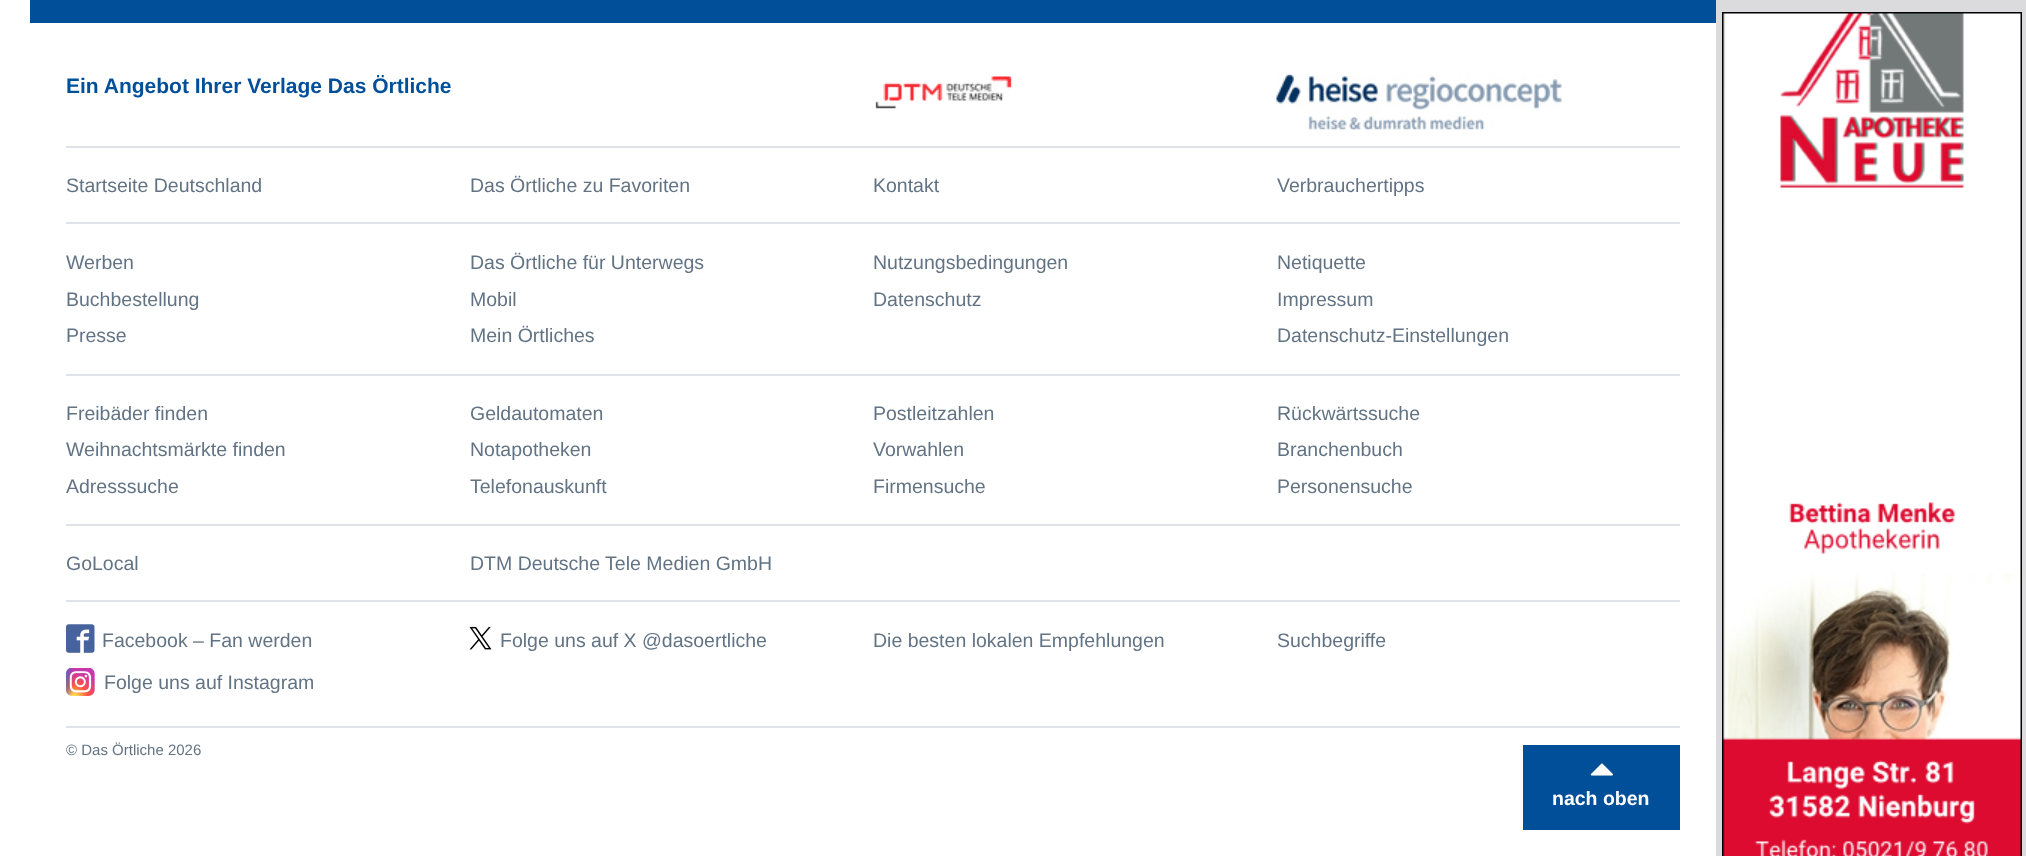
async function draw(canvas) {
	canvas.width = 2026;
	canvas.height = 856;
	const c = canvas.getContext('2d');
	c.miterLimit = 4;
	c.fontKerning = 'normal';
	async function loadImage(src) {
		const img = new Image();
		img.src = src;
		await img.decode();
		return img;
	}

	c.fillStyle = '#dbdbdd';
	c.fillRect(0, 0, 2026, 856);
	for (const [x, y, w, h, color] of [
		[0, 0, 1716, 856, '#fff'],
		[30, 0, 1686, 23, '#024f99'],
		[66, 146, 1614, 2, '#dfe3e7'],
	]) {
		c.fillStyle = color;
		c.fillRect(x, y, w, h);
	}
	c.font = 'bold 21px Liberation Sans';
	c.fillStyle = '#024f99';
	c.fillText('Ein Angebot Ihrer Verlage Das Örtliche', 66, 93);
	c.drawImage(await loadImage('img1.png'), 875, 76, 137, 33);
	c.drawImage(await loadImage('img2.png'), 1276, 74, 286, 56);
	c.fillStyle = '#dfe3e7';
	c.fillRect(66, 222, 1614, 2);
	c.font = '19.5px Liberation Sans';
	c.fillStyle = '#627384';
	for (const [text, x, y] of [
		['Startseite Deutschland', 66, 192],
		['Das Örtliche zu Favoriten', 470, 192],
		['Kontakt', 873, 192],
		['Verbrauchertipps', 1277, 192],
	]) {
		c.fillText(text, x, y);
	}
	c.fillStyle = '#dfe3e7';
	c.fillRect(66, 374, 1614, 2);
	c.fillStyle = '#627384';
	for (const [text, x, y] of [
		['Werben', 66, 269],
		['Buchbestellung', 66, 306],
		['Presse', 66, 342],
		['Das Örtliche für Unterwegs', 470, 269],
		['Mobil', 470, 306],
		['Mein Örtliches', 470, 342],
		['Nutzungsbedingungen', 873, 269],
		['Datenschutz', 873, 306],
		['Netiquette', 1277, 269],
		['Impressum', 1277, 306],
		['Datenschutz-Einstellungen', 1277, 342],
	]) {
		c.fillText(text, x, y);
	}
	c.fillStyle = '#dfe3e7';
	c.fillRect(66, 524, 1614, 2);
	c.fillStyle = '#627384';
	for (const [text, x, y] of [
		['Freibäder finden', 66, 420],
		['Weihnachtsmärkte finden', 66, 456],
		['Adresssuche', 66, 493],
		['Geldautomaten', 470, 420],
		['Notapotheken', 470, 456],
		['Telefonauskunft', 470, 493],
		['Postleitzahlen', 873, 420],
		['Vorwahlen', 873, 456],
		['Firmensuche', 873, 493],
		['Rückwärtssuche', 1277, 420],
		['Branchenbuch', 1277, 456],
		['Personensuche', 1277, 493],
	]) {
		c.fillText(text, x, y);
	}
	c.fillStyle = '#dfe3e7';
	c.fillRect(66, 600, 1614, 2);
	c.fillStyle = '#627384';
	c.fillText('GoLocal', 66, 570);
	c.fillText('DTM Deutsche Tele Medien GmbH', 470, 570);
	c.fillStyle = '#dfe3e7';
	c.fillRect(66, 726, 1614, 2);
	c.drawImage(await loadImage('img3.png'), 66, 624, 29, 29);
	c.fillStyle = '#627384';
	c.fillText('Facebook – Fan werden', 102, 647);
	c.drawImage(await loadImage('img4.png'), 66, 668, 29, 28);
	c.fillText('Folge uns auf Instagram', 104, 689);
	c.drawImage(await loadImage('img5.png'), 469, 626, 23, 24);
	for (const [text, x, y] of [
		['Folge uns auf X @dasoertliche', 500, 647],
		['Die besten lokalen Empfehlungen', 873, 647],
		['Suchbegriffe', 1277, 647],
	]) {
		c.fillText(text, x, y);
	}
	c.font = '15px Liberation Sans';
	c.fillText('© Das Örtliche 2026', 66, 755);
	c.fillStyle = '#024f99';
	c.fillRect(1523, 745, 157, 85);
	c.drawImage(await loadImage('img6.png'), 1590, 763, 23, 13);
	c.font = 'bold 19.5px Liberation Sans';
	c.fillStyle = '#fff';
	c.fillText('nach oben', 1552, 805);
	c.drawImage(await loadImage('img7.png'), 1722, 12, 300, 844);
}

draw(document.querySelector('canvas'));
